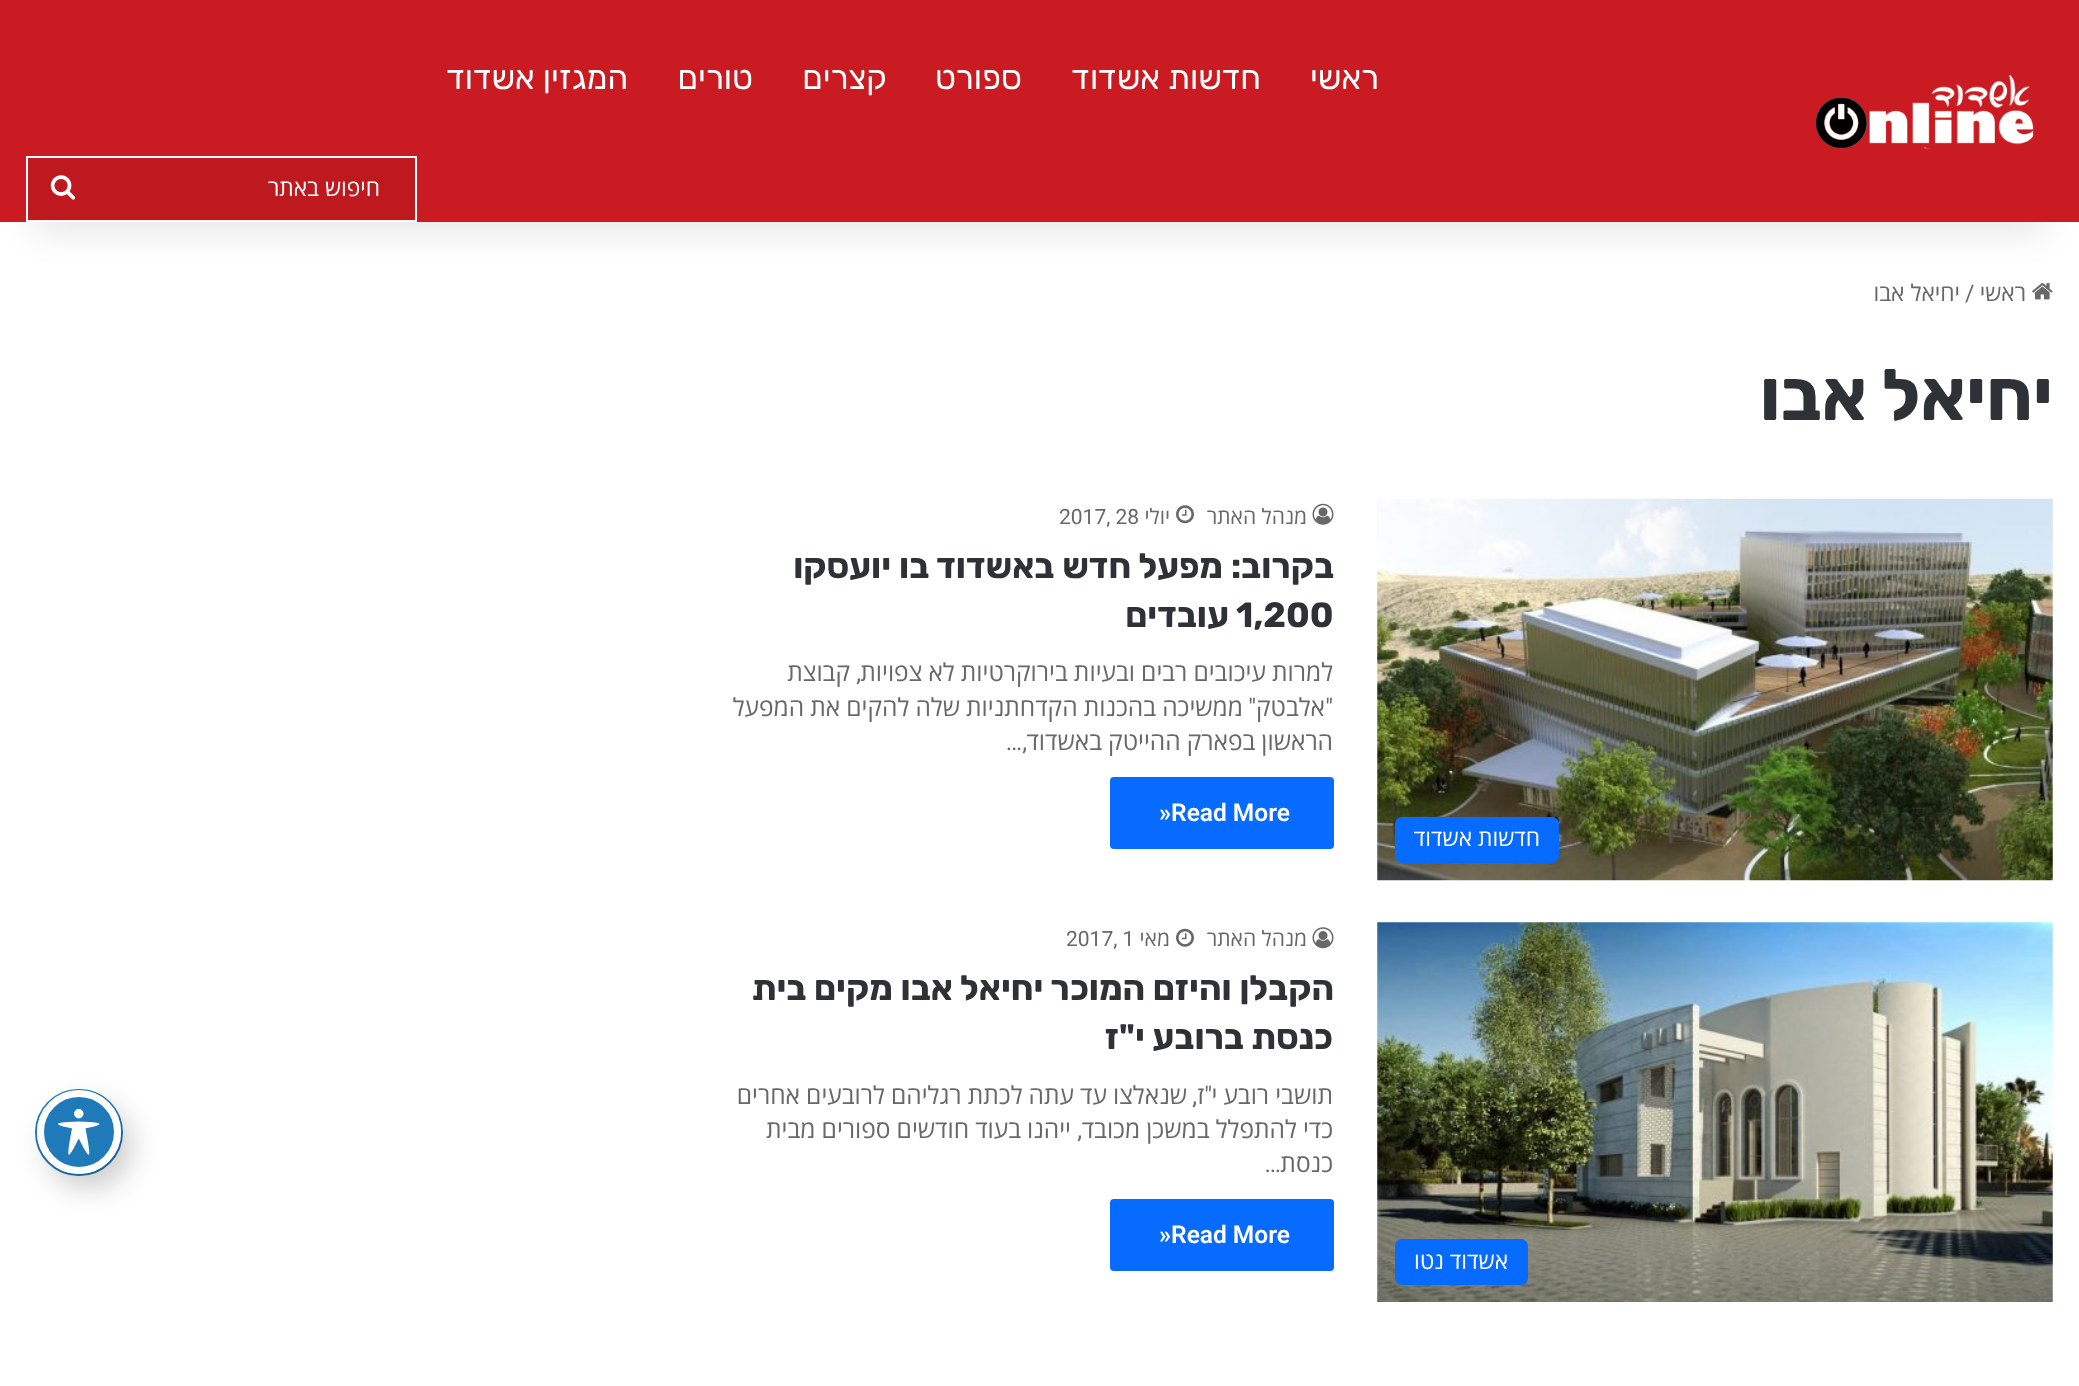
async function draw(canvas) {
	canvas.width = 2079;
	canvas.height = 1386;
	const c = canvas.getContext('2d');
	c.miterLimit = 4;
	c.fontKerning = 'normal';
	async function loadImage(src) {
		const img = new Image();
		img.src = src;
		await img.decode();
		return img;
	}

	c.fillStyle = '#fff';
	c.fillRect(0, 0, 2079, 1386);
	c.drawImage(await loadImage('img3.png'), 2032, 283, 21, 17);
	c.fillStyle = '#0000001a';
	c.filter = 'blur(17.5px)';
	c.beginPath();
	c.rect(35, 79, 2009, 152);
	c.fill();
	c.filter = 'none';
	c.fillStyle = '#c91b21';
	c.fillRect(0, 0, 2079, 222);
	c.drawImage(await loadImage('img1.png'), 1816, 75, 218, 75);
	c.direction = 'rtl';
	c.font = '33.25px Rubik';
	c.fillStyle = '#fff';
	for (const [text, x, y] of [
		['ראשי', 1379, 89],
		['חדשות אשדוד', 1261, 89],
		['ספורט', 1022, 89],
		['קצרים', 887, 89],
		['טורים', 753, 89],
		['המגזין אשדוד', 628, 89],
	]) {
		c.fillText(text, x, y);
	}
	c.strokeStyle = '#fff';
	c.lineWidth = 2;
	c.strokeRect(27, 157, 389, 64);
	c.fillStyle = '#0000000d';
	c.fillRect(28, 158, 387, 63);
	c.font = '22.75px Open Sans';
	c.fillStyle = '#fff';
	c.fillText('חיפוש באתר', 380, 196);
	c.drawImage(await loadImage('img2.png'), 50, 175, 26, 25);
	c.fillStyle = '#686868';
	c.fillText('ראשי', 2026, 301);
	c.direction = 'ltr';
	c.font = '22.75px Roboto';
	c.fillText('/', 1965, 301);
	c.direction = 'rtl';
	c.font = '22.75px Open Sans';
	c.fillText('יחיאל אבו', 1960, 301);
	c.wordSpacing = '1px';
	c.font = 'bold 71.75px Rubik';
	c.fillStyle = '#2e3136';
	c.fillText('יחיאל אבו', 2053, 420);
	c.drawImage(await loadImage('img4.png'), 1312, 503, 22, 22);
	c.wordSpacing = '0px';
	c.font = '21px Open Sans';
	c.fillStyle = '#686868';
	c.fillText('מנהל האתר', 1307, 524);
	c.drawImage(await loadImage('img5.png'), 1176, 505, 18, 19);
	c.fillText('יולי', 1170, 524);
	c.direction = 'ltr';
	c.font = '21px Roboto';
	c.fillText('2017, 28', 1059, 524);
	c.wordSpacing = '0.5px';
	c.direction = 'rtl';
	c.font = 'bold 35px Rubik';
	c.fillStyle = '#2e3136';
	c.fillText('בקרוב: מפעל חדש באשדוד בו יועסקו', 1334, 578);
	c.wordSpacing = '0px';
	c.direction = 'ltr';
	c.fillText('1,200', 1236, 627);
	c.direction = 'rtl';
	c.fillText('עובדים', 1229, 627);
	c.wordSpacing = '-0.25px';
	c.font = '24.5px Open Sans';
	c.fillStyle = '#686868';
	c.fillText('למרות עיכובים רבים ובעיות בירוקרטיות לא צפויות', 1333, 681);
	c.wordSpacing = '0px';
	c.font = '24.5px Roboto';
	c.fillText(',', 861, 681);
	c.font = '24.5px Open Sans';
	c.fillText('קבוצת', 850, 681);
	c.font = '24.5px Roboto';
	c.fillText('"', 1333, 716);
	c.font = '24.5px Open Sans';
	c.fillText('אלבטק', 1325, 716);
	c.font = '24.5px Roboto';
	c.fillText('"', 1256, 716);
	c.wordSpacing = '-0.25px';
	c.font = '24.5px Open Sans';
	c.fillText('ממשיכה בהכנות הקדחתניות שלה להקים את המפעל', 1243, 716);
	c.fillText('הראשון בפארק ההייטק באשדוד', 1333, 750);
	c.wordSpacing = '0px';
	c.font = '24.5px Roboto';
	c.fillText(',…', 1027, 750);
	c.fillStyle = '#086bff';
	c.beginPath();
	c.roundRect(1110, 777, 224, 72, 4);
	c.fill();
	c.direction = 'ltr';
	c.font = '600 24.5px Roboto';
	c.fillStyle = '#fff';
	c.fillText('»Read More', 1159, 821);
	c.drawImage(await loadImage('img6.png'), 1377, 498, 676, 383);
	c.fillStyle = '#086bff';
	c.beginPath();
	c.roundRect(1395, 817, 164, 46, 7);
	c.fill();
	c.direction = 'rtl';
	c.font = '22.75px Open Sans';
	c.fillStyle = '#fff';
	c.fillText('חדשות אשדוד', 1540, 846);
	c.drawImage(await loadImage('img7.png'), 1312, 927, 22, 22);
	c.font = '21px Open Sans';
	c.fillStyle = '#686868';
	c.fillText('מנהל האתר', 1307, 946);
	c.drawImage(await loadImage('img8.png'), 1176, 928, 18, 19);
	c.fillText('מאי', 1170, 946);
	c.direction = 'ltr';
	c.font = '21px Roboto';
	c.fillText('2017, 1', 1066, 946);
	c.wordSpacing = '0.25px';
	c.direction = 'rtl';
	c.font = 'bold 35px Rubik';
	c.fillStyle = '#2e3136';
	c.fillText('הקבלן והיזם המוכר יחיאל אבו מקים בית', 1334, 1000);
	c.wordSpacing = '0px';
	c.fillText('כנסת ברובע י"ז', 1333, 1049);
	c.wordSpacing = '-0.25px';
	c.font = '24.5px Open Sans';
	c.fillStyle = '#686868';
	c.fillText('תושבי רובע י', 1333, 1104);
	c.wordSpacing = '0px';
	c.font = '24.5px Roboto';
	c.fillText('"', 1212, 1104);
	c.font = '24.5px Open Sans';
	c.fillText('ז', 1204, 1104);
	c.font = '24.5px Roboto';
	c.fillText(',', 1197, 1104);
	c.wordSpacing = '-0.25px';
	c.font = '24.5px Open Sans';
	c.fillText('שנאלצו עד עתה לכתת רגליהם לרובעים אחרים', 1187, 1104);
	c.fillText('כדי להתפלל במשכן מכובד', 1333, 1138);
	c.wordSpacing = '0px';
	c.font = '24.5px Roboto';
	c.fillText(',', 1082, 1138);
	c.wordSpacing = '-0.25px';
	c.font = '24.5px Open Sans';
	c.fillText('ייהנו בעוד חודשים ספורים מבית', 1071, 1138);
	c.wordSpacing = '0px';
	c.fillText('כנסת', 1333, 1172);
	c.font = '24.5px Roboto';
	c.fillText('…', 1281, 1172);
	c.fillStyle = '#086bff';
	c.beginPath();
	c.roundRect(1110, 1199, 224, 72, 4);
	c.fill();
	c.direction = 'ltr';
	c.font = '600 24.5px Roboto';
	c.fillStyle = '#fff';
	c.fillText('»Read More', 1159, 1243);
	c.drawImage(await loadImage('img9.png'), 1377, 922, 676, 380);
	c.fillStyle = '#086bff';
	c.beginPath();
	c.roundRect(1395, 1239, 133, 46, 7);
	c.fill();
	c.direction = 'rtl';
	c.font = '22.75px Open Sans';
	c.fillStyle = '#fff';
	c.fillText('אשדוד נטו', 1508, 1269);
	c.beginPath();
	c.roundRect(36, 1090, 86, 85, 42.5);
	c.strokeStyle = '#1e7ab9';
	c.stroke();
	c.fillStyle = '#00000033';
	c.filter = 'blur(14px)';
	c.beginPath();
	c.roundRect(47, 1104, 84, 84, 42);
	c.fill();
	c.filter = 'none';
	c.fillStyle = '#1e7ab9';
	c.beginPath();
	c.arc(79, 1132, 38.5, 0, 2 * Math.PI);
	c.fill();
	c.strokeStyle = '#fff';
	c.lineWidth = 7;
	c.stroke();
	c.drawImage(await loadImage('img10.png'), 58, 1108, 42, 47);
}

draw(document.querySelector('canvas'));
